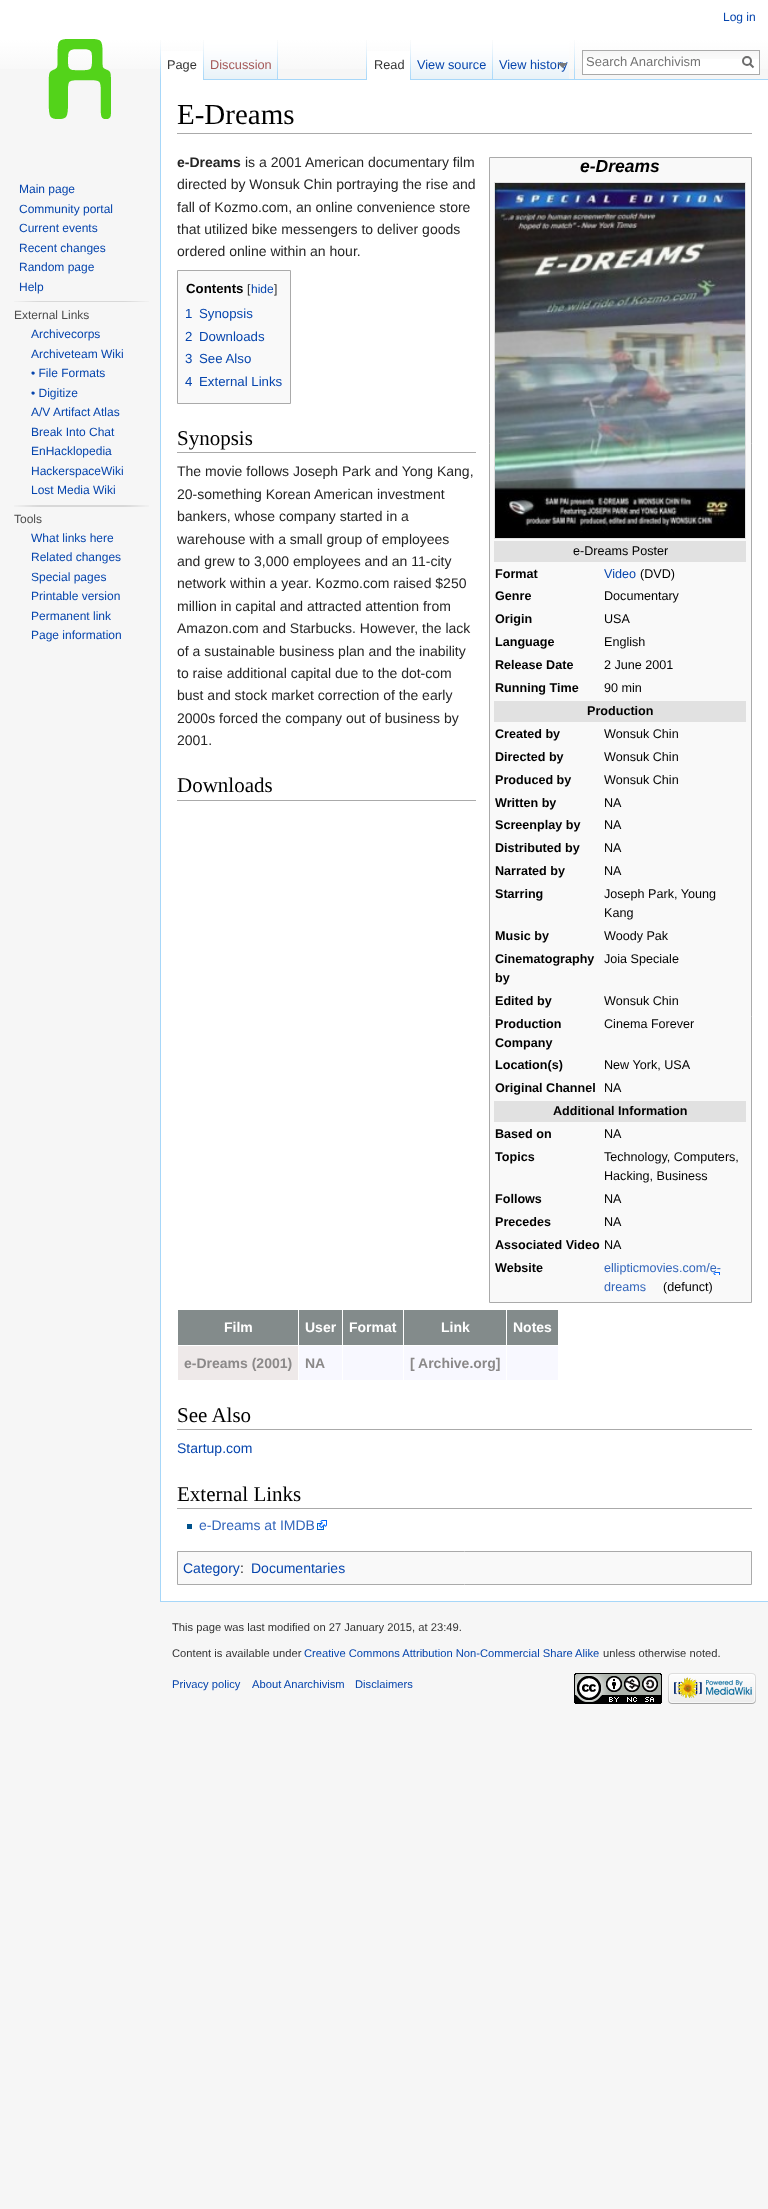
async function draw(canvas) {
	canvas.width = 768;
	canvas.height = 2209;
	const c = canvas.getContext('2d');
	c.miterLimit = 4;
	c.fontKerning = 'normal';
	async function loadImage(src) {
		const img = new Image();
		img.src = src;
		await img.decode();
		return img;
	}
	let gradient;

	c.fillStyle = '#f6f6f6';
	c.fillRect(0, 0, 768, 2209);
	gradient = c.createLinearGradient(384, 0, 384, 80);
	gradient.addColorStop(0.5, '#fff');
	gradient.addColorStop(1, '#f6f6f6');
	c.fillStyle = gradient;
	c.fillRect(0, 0, 768, 69);
	c.font = '12px Liberation Sans';
	c.fillStyle = '#0645ad';
	c.fillText('Log in', 723, 21);
	c.drawImage(await loadImage('img1.png'), 160, 40, 1, 39);
	c.fillStyle = '#fff';
	c.fillRect(161, 51, 42, 29);
	c.drawImage(await loadImage('img2.png'), 203, 40, 1, 40);
	c.font = '12.75px Liberation Sans';
	c.fillStyle = '#333';
	c.fillText('Page', 167, 69);
	c.drawImage(await loadImage('img3.png'), 204, 40, 74, 40);
	c.drawImage(await loadImage('img4.png'), 277, 40, 1, 39);
	c.fillStyle = '#a55858';
	c.fillText('Discussion', 210, 69);
	c.drawImage(await loadImage('img1.png'), 574, 40, 1, 39);
	c.fillStyle = '#a7d7f9';
	c.fillRect(278, 79, 490, 1);
	c.drawImage(await loadImage('img7.png'), 493, 40, 76, 40);
	c.fillStyle = '#0645ad';
	c.fillText('View history', 499, 69);
	c.fillStyle = '#797979';
	c.beginPath();
	c.moveTo(567.5, 63);
	c.lineTo(562.5, 68);
	c.lineTo(557.5, 63);
	c.closePath();
	c.fill();
	c.fillStyle = '#fff';
	c.fillRect(583, 59, 176, 15);
	c.drawImage(await loadImage('img5.png'), 583, 51, 176, 8);
	c.strokeStyle = '#aaa';
	c.strokeRect(582.5, 50.5, 177, 24);
	c.font = '13px Liberation Sans';
	c.fillStyle = '#757575';
	c.fillText('Search Anarchivism', 586, 66);
	c.beginPath();
	c.moveTo(753.5, 67.5);
	c.lineTo(749.5, 63.5);
	c.strokeStyle = '#6c6c6c';
	c.lineWidth = 2;
	c.stroke();
	c.beginPath();
	c.arc(747, 61, 4, 0, 2 * Math.PI);
	c.stroke();
	c.drawImage(await loadImage('img1.png'), 366, 40, 1, 39);
	c.fillStyle = '#fff';
	c.fillRect(367, 51, 43, 29);
	c.drawImage(await loadImage('img2.png'), 410, 40, 1, 40);
	c.font = '12.75px Liberation Sans';
	c.fillStyle = '#333';
	c.fillText('Read', 374, 69);
	c.drawImage(await loadImage('img6.png'), 411, 40, 82, 40);
	c.drawImage(await loadImage('img4.png'), 492, 40, 1, 39);
	c.fillStyle = '#0645ad';
	c.fillText('View source', 417, 69);
	c.drawImage(await loadImage('img8.png'), 48, 39, 63, 80);
	c.font = '12px Liberation Sans';
	for (const [text, x, y] of [
		['Main page', 19, 193],
		['Community portal', 19, 213],
		['Current events', 19, 232],
		['Recent changes', 19, 252],
		['Random page', 19, 271],
		['Help', 19, 291],
	]) {
		c.fillText(text, x, y);
	}
	c.drawImage(await loadImage('img9.png'), 14, 301, 135, 1);
	c.fillStyle = '#4d4d4d';
	c.fillText('External Links', 14, 319);
	c.fillStyle = '#0645ad';
	for (const [text, x, y] of [
		['Archivecorps', 31, 338],
		['Archiveteam Wiki', 31, 358],
		['• File Formats', 31, 377],
		['• Digitize', 31, 397],
		['A/V Artifact Atlas', 31, 416],
		['Break Into Chat', 31, 436],
		['EnHacklopedia', 31, 455],
		['HackerspaceWiki', 31, 475],
		['Lost Media Wiki', 31, 494],
	]) {
		c.fillText(text, x, y);
	}
	c.drawImage(await loadImage('img10.png'), 14, 505, 135, 2);
	c.fillStyle = '#4d4d4d';
	c.fillText('Tools', 14, 523);
	c.fillStyle = '#0645ad';
	for (const [text, x, y] of [
		['What links here', 31, 542],
		['Related changes', 31, 561],
		['Special pages', 31, 581],
		['Printable version', 31, 600],
		['Permanent link', 31, 620],
		['Page information', 31, 639],
	]) {
		c.fillText(text, x, y);
	}
	for (const [x, y, w, h, color] of [
		[161, 80, 607, 1521, '#fff'],
		[160, 1601, 608, 1, '#a7d7f9'],
		[160, 79, 1, 1523, '#a7d7f9'],
		[177, 133, 575, 1, '#aaa'],
	]) {
		c.fillStyle = color;
		c.fillRect(x, y, w, h);
	}
	c.font = '29px Liberation Serif';
	c.fillStyle = '#000';
	c.fillText('E-Dreams', 177, 124);
	c.font = 'bold 14px Liberation Sans';
	c.fillStyle = '#252525';
	c.fillText('e-Dreams', 177, 167);
	c.font = '14px Liberation Sans';
	for (const [text, x, y] of [
		['is a 2001 American documentary film', 245, 167],
		['directed by Wonsuk Chin portraying the rise and', 177, 189],
		['fall of Kozmo.com, an online convenience store', 177, 212],
		['that utilized bike messengers to deliver goods', 177, 234],
		['ordered online within an hour.', 177, 256],
	]) {
		c.fillText(text, x, y);
	}
	c.fillStyle = '#f9f9f9';
	c.beginPath();
	c.rect(489.5, 157.5, 262, 1145);
	c.fill();
	c.strokeStyle = '#aaa';
	c.lineWidth = 1;
	c.stroke();
	c.font = 'italic bold 17.5px Liberation Sans';
	c.fillStyle = '#000';
	c.fillText('e-Dreams', 580, 172);
	c.fillStyle = '#e1e1e1';
	c.fillRect(494, 182, 252, 357);
	c.drawImage(await loadImage('img11.png'), 495, 183, 250, 355);
	c.fillRect(494, 541, 252, 21);
	c.font = '12.6px Liberation Sans';
	c.fillStyle = '#000';
	c.fillText('e-Dreams Poster', 573, 555);
	c.font = 'bold 12.6px Liberation Sans';
	c.fillText('Format', 495, 578);
	c.font = '12.6px Liberation Sans';
	c.fillStyle = '#0645ad';
	c.fillText('Video', 604, 578);
	c.fillStyle = '#000';
	c.fillText('(DVD)', 640, 578);
	c.font = 'bold 12.6px Liberation Sans';
	c.fillText('Genre', 495, 600);
	c.font = '12.6px Liberation Sans';
	c.fillText('Documentary', 604, 600);
	c.font = 'bold 12.6px Liberation Sans';
	c.fillText('Origin', 495, 623);
	c.font = '12.6px Liberation Sans';
	c.fillText('USA', 604, 623);
	c.font = 'bold 12.6px Liberation Sans';
	c.fillText('Language', 495, 646);
	c.font = '12.6px Liberation Sans';
	c.fillText('English', 604, 646);
	c.font = 'bold 12.6px Liberation Sans';
	c.fillText('Release Date', 495, 669);
	c.font = '12.6px Liberation Sans';
	c.fillText('2 June 2001', 604, 669);
	c.font = 'bold 12.6px Liberation Sans';
	c.fillText('Running Time', 495, 692);
	c.font = '12.6px Liberation Sans';
	c.fillText('90 min', 604, 692);
	c.fillStyle = '#e1e1e1';
	c.fillRect(494, 701, 252, 21);
	c.font = 'bold 12.6px Liberation Sans';
	c.fillStyle = '#000';
	c.fillText('Production', 587, 715);
	c.fillText('Created by', 495, 738);
	c.font = '12.6px Liberation Sans';
	c.fillText('Wonsuk Chin', 604, 738);
	c.font = 'bold 12.6px Liberation Sans';
	c.fillText('Directed by', 495, 761);
	c.font = '12.6px Liberation Sans';
	c.fillText('Wonsuk Chin', 604, 761);
	c.font = 'bold 12.6px Liberation Sans';
	c.fillText('Produced by', 495, 784);
	c.font = '12.6px Liberation Sans';
	c.fillText('Wonsuk Chin', 604, 784);
	c.font = 'bold 12.6px Liberation Sans';
	c.fillText('Written by', 495, 807);
	c.font = '12.6px Liberation Sans';
	c.fillText('NA', 604, 807);
	c.font = 'bold 12.6px Liberation Sans';
	c.fillText('Screenplay by', 495, 829);
	c.font = '12.6px Liberation Sans';
	c.fillText('NA', 604, 829);
	c.font = 'bold 12.6px Liberation Sans';
	c.fillText('Distributed by', 495, 852);
	c.font = '12.6px Liberation Sans';
	c.fillText('NA', 604, 852);
	c.font = 'bold 12.6px Liberation Sans';
	c.fillText('Narrated by', 495, 875);
	c.font = '12.6px Liberation Sans';
	c.fillText('NA', 604, 875);
	c.font = 'bold 12.6px Liberation Sans';
	c.fillText('Starring', 495, 898);
	c.font = '12.6px Liberation Sans';
	c.fillText('Joseph Park, Young', 604, 898);
	c.fillText('Kang', 604, 917);
	c.font = 'bold 12.6px Liberation Sans';
	c.fillText('Music by', 495, 940);
	c.font = '12.6px Liberation Sans';
	c.fillText('Woody Pak', 604, 940);
	c.font = 'bold 12.6px Liberation Sans';
	c.fillText('Cinematography', 495, 963);
	c.fillText('by', 495, 982);
	c.font = '12.6px Liberation Sans';
	c.fillText('Joia Speciale', 604, 963);
	c.font = 'bold 12.6px Liberation Sans';
	c.fillText('Edited by', 495, 1005);
	c.font = '12.6px Liberation Sans';
	c.fillText('Wonsuk Chin', 604, 1005);
	c.font = 'bold 12.6px Liberation Sans';
	c.fillText('Production', 495, 1028);
	c.fillText('Company', 495, 1047);
	c.font = '12.6px Liberation Sans';
	c.fillText('Cinema Forever', 604, 1028);
	c.font = 'bold 12.6px Liberation Sans';
	c.fillText('Location(s)', 495, 1069);
	c.font = '12.6px Liberation Sans';
	c.fillText('New York, USA', 604, 1069);
	c.font = 'bold 12.6px Liberation Sans';
	c.fillText('Original Channel', 495, 1092);
	c.font = '12.6px Liberation Sans';
	c.fillText('NA', 604, 1092);
	c.fillStyle = '#e1e1e1';
	c.fillRect(494, 1101, 252, 21);
	c.font = 'bold 12.6px Liberation Sans';
	c.fillStyle = '#000';
	c.fillText('Additional Information', 553, 1115);
	c.fillText('Based on', 495, 1138);
	c.font = '12.6px Liberation Sans';
	c.fillText('NA', 604, 1138);
	c.font = 'bold 12.6px Liberation Sans';
	c.fillText('Topics', 495, 1161);
	c.font = '12.6px Liberation Sans';
	c.fillText('Technology, Computers,', 604, 1161);
	c.fillText('Hacking, Business', 604, 1180);
	c.font = 'bold 12.6px Liberation Sans';
	c.fillText('Follows', 495, 1203);
	c.font = '12.6px Liberation Sans';
	c.fillText('NA', 604, 1203);
	c.font = 'bold 12.6px Liberation Sans';
	c.fillText('Precedes', 495, 1226);
	c.font = '12.6px Liberation Sans';
	c.fillText('NA', 604, 1226);
	c.font = 'bold 12.6px Liberation Sans';
	c.fillText('Associated Video', 495, 1249);
	c.font = '12.6px Liberation Sans';
	c.fillText('NA', 604, 1249);
	c.font = 'bold 12.6px Liberation Sans';
	c.fillText('Website', 495, 1272);
	c.drawImage(await loadImage('img12.png'), 713, 1272, 7, 3);
	c.font = '12.6px Liberation Sans';
	c.fillStyle = '#36b';
	c.fillText('ellipticmovies.com/e-', 604, 1272);
	c.fillText('dreams', 604, 1291);
	c.fillStyle = '#000';
	c.fillText('(defunct)', 663, 1291);
	c.fillStyle = '#f9f9f9';
	c.beginPath();
	c.rect(177.5, 270.5, 113, 133);
	c.fill();
	c.stroke();
	c.font = 'bold 13.25px Liberation Sans';
	c.fillStyle = '#000';
	c.fillText('Contents', 186, 293);
	c.font = '12px Liberation Sans';
	c.fillStyle = '#252525';
	c.fillText('[', 247, 293);
	c.fillStyle = '#0645ad';
	c.fillText('hide', 251, 293);
	c.fillStyle = '#252525';
	c.fillText(']', 274, 293);
	c.font = '13.25px Liberation Sans';
	c.fillStyle = '#0645ad';
	for (const [text, x, y] of [
		['1', 185, 318],
		['Synopsis', 199, 318],
		['2', 185, 341],
		['Downloads', 199, 341],
		['3', 185, 363],
		['See Also', 199, 363],
		['4', 185, 386],
		['External Links', 199, 386],
	]) {
		c.fillText(text, x, y);
	}
	c.fillStyle = '#aaa';
	c.fillRect(177, 452, 299, 1);
	c.font = '21px Liberation Serif';
	c.fillStyle = '#000';
	c.fillText('Synopsis', 177, 445);
	c.font = '14px Liberation Sans';
	c.fillStyle = '#252525';
	for (const [text, x, y] of [
		['The movie follows Joseph Park and Yong Kang,', 177, 476],
		['20-something Korean American investment', 177, 499],
		['bankers, whose company started in a', 177, 521],
		['warehouse with a small group of employees', 177, 544],
		['and grew to 3,000 employees and an 11-city', 177, 566],
		['network within a year. Kozmo.com raised $250', 177, 588],
		['million in capital and attracted attention from', 177, 611],
		['Amazon.com and Starbucks. However, the lack', 177, 633],
		['of a sustainable business plan and the inability', 177, 656],
		['to raise additional capital due to the dot-com', 177, 678],
		['bust and stock market correction of the early', 177, 700],
		['2000s forced the company out of business by', 177, 723],
		['2001.', 177, 745],
	]) {
		c.fillText(text, x, y);
	}
	c.fillStyle = '#aaa';
	c.fillRect(177, 800, 299, 1);
	c.font = '21px Liberation Serif';
	c.fillStyle = '#000';
	c.fillText('Downloads', 177, 792);
	c.fillStyle = '#838b8b';
	c.fillRect(178, 1310, 120, 35);
	c.font = 'bold 14px Liberation Sans';
	c.fillStyle = '#fff';
	c.fillText('Film', 224, 1332);
	c.fillStyle = '#838b8b';
	c.fillRect(299, 1310, 43, 35);
	c.fillStyle = '#fff';
	c.fillText('User', 305, 1332);
	c.fillStyle = '#838b8b';
	c.fillRect(343, 1310, 60, 35);
	c.fillStyle = '#fff';
	c.fillText('Format', 349, 1332);
	c.fillStyle = '#838b8b';
	c.fillRect(404, 1310, 102, 35);
	c.fillStyle = '#fff';
	c.fillText('Link', 441, 1332);
	c.fillStyle = '#838b8b';
	c.fillRect(507, 1310, 51, 35);
	c.fillStyle = '#fff';
	c.fillText('Notes', 513, 1332);
	c.fillStyle = '#eee9e9';
	c.fillRect(178, 1346, 120, 34);
	c.fillStyle = '#8b8989';
	c.fillText('e-Dreams (2001)', 184, 1368);
	c.fillStyle = '#f8f8ff';
	c.fillRect(299, 1346, 43, 34);
	c.fillStyle = '#8b8989';
	c.fillText('NA', 305, 1368);
	c.fillStyle = '#f8f8ff';
	c.fillRect(343, 1346, 60, 34);
	c.fillRect(404, 1346, 102, 34);
	c.fillStyle = '#8b8989';
	c.fillText('[ Archive.org]', 410, 1368);
	c.fillStyle = '#f8f8ff';
	c.fillRect(507, 1346, 51, 34);
	c.fillStyle = '#aaa';
	c.fillRect(177, 1429, 575, 1);
	c.font = '21px Liberation Serif';
	c.fillStyle = '#000';
	c.fillText('See Also', 177, 1422);
	c.font = '14px Liberation Sans';
	c.fillStyle = '#0645ad';
	c.fillText('Startup.com', 177, 1453);
	c.fillStyle = '#aaa';
	c.fillRect(177, 1508, 575, 1);
	c.font = '21px Liberation Serif';
	c.fillStyle = '#000';
	c.fillText('External Links', 177, 1501);
	c.fillStyle = '#00528c';
	c.fillRect(187, 1524, 5, 5);
	c.font = '14px Liberation Sans';
	c.fillStyle = '#36b';
	c.fillText('e-Dreams at IMDB', 199, 1530);
	c.drawImage(await loadImage('img13.png'), 317, 1520, 10, 10);
	c.fillStyle = '#f9f9f9';
	c.beginPath();
	c.rect(177.5, 1551.5, 574, 33);
	c.fill();
	c.stroke();
	c.fillStyle = '#0645ad';
	c.fillText('Category', 183, 1573);
	c.fillStyle = '#252525';
	c.fillText(':', 240, 1573);
	c.fillStyle = '#0645ad';
	c.fillText('Documentaries', 251, 1573);
	c.font = '11.2px Liberation Sans';
	c.fillStyle = '#333';
	c.fillText('This page was last modified on 27 January 2015, at 23:49.', 172, 1631);
	c.fillText('Content is available under', 172, 1657);
	c.fillStyle = '#0645ad';
	c.fillText('Creative Commons Attribution Non-Commercial Share Alike', 304, 1657);
	c.fillStyle = '#333';
	c.fillText('unless otherwise noted.', 603, 1657);
	c.fillStyle = '#0645ad';
	for (const [text, x, y] of [
		['Privacy policy', 172, 1688],
		['About Anarchivism', 252, 1688],
		['Disclaimers', 355, 1688],
	]) {
		c.fillText(text, x, y);
	}
	c.drawImage(await loadImage('img14.png'), 574, 1673, 88, 31);
	c.drawImage(await loadImage('img15.png'), 668, 1673, 88, 31);
}

draw(document.querySelector('canvas'));
